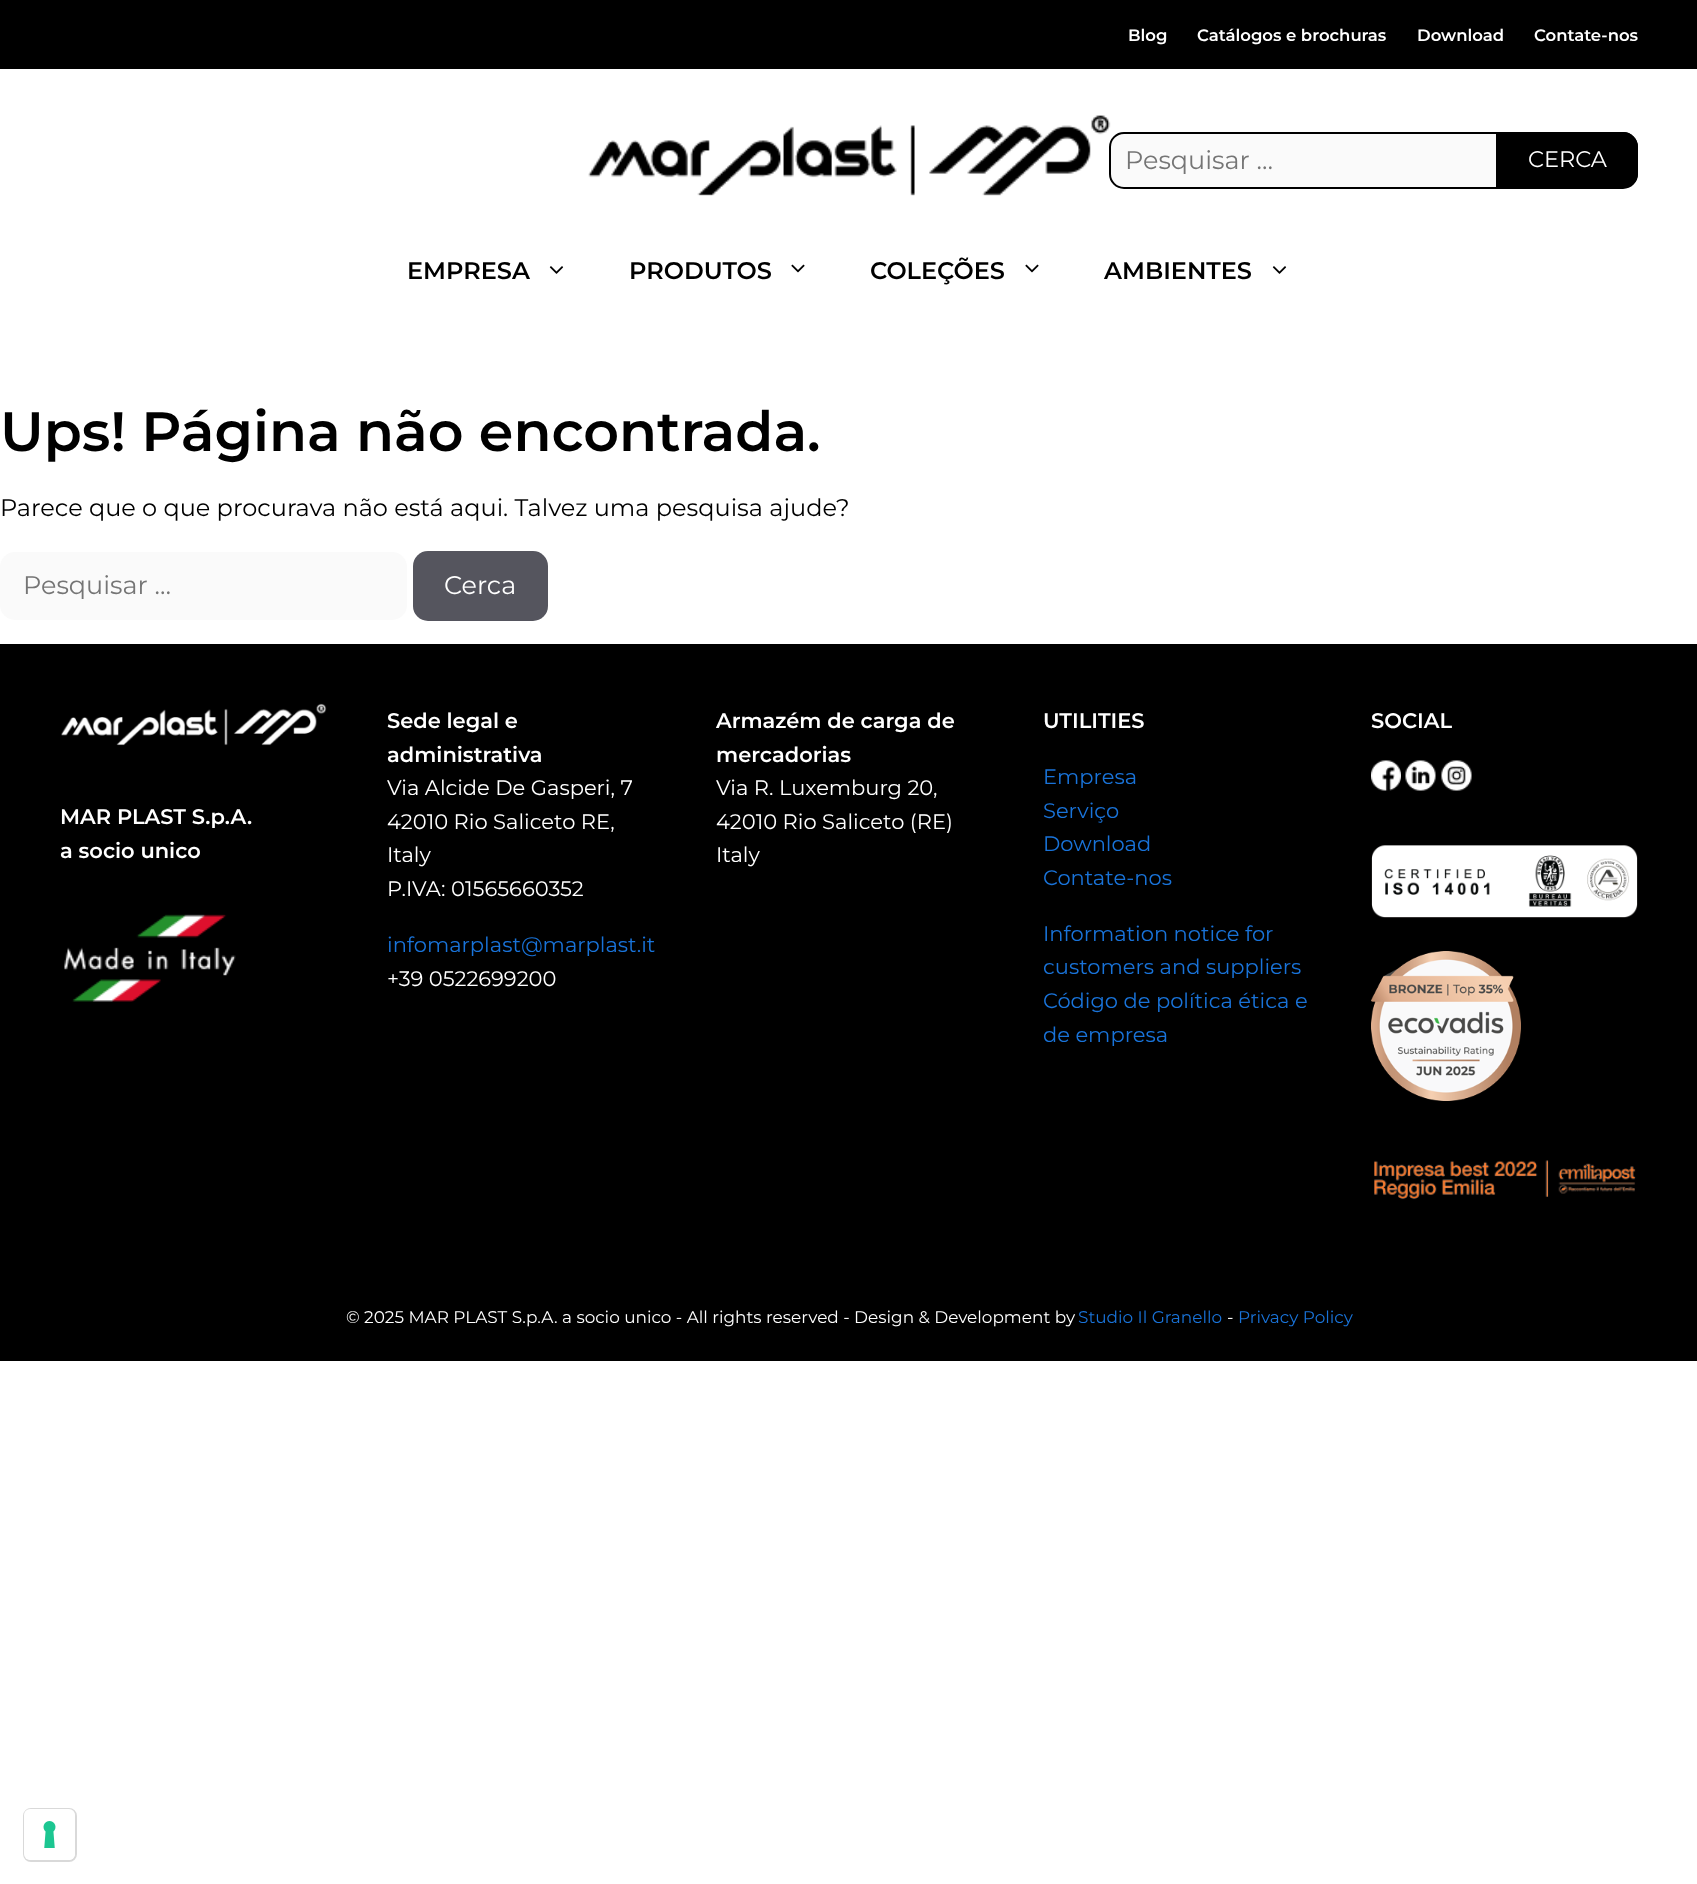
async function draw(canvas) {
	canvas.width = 1697;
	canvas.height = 1884;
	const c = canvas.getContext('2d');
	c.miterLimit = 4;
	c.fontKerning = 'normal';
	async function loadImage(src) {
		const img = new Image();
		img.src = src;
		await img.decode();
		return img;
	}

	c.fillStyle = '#fff';
	c.fillRect(0, 0, 1697, 1884);
	c.fillStyle = '#000';
	c.fillRect(0, 0, 1697, 69);
	c.font = '600 16.5px Montserrat';
	c.fillStyle = '#fff';
	for (const [text, x, y] of [
		['Blog', 1128, 41],
		['Catálogos e brochuras', 1197, 41],
		['Download', 1417, 41],
		['Contate-nos', 1534, 41],
	]) {
		c.fillText(text, x, y);
	}
	c.drawImage(await loadImage('img1.png'), 588, 115, 523, 81);
	c.fillStyle = '#fafafa';
	c.beginPath();
	c.roundRect(1110, 133, 527, 55, 14);
	c.fill();
	c.strokeStyle = '#000';
	c.lineWidth = 2;
	c.stroke();
	c.font = '25.5px Montserrat';
	c.fillStyle = '#757575';
	c.fillText('Pesquisar …', 1125, 169);
	c.fillStyle = '#000';
	c.beginPath();
	c.roundRect(1496, 132, 142, 56, [0, 15, 15, 0]);
	c.fill();
	c.font = '22.5px Montserrat';
	c.fillStyle = '#fff';
	c.fillText('CERCA', 1528, 167);
	c.font = '600 24px Montserrat';
	c.fillStyle = '#000';
	c.fillText('EMPRESA', 407, 279);
	c.drawImage(await loadImage('img2.png'), 549, 266, 15, 8);
	c.fillText('PRODUTOS', 629, 279);
	c.drawImage(await loadImage('img3.png'), 791, 264, 14, 9);
	c.fillText('COLEÇÕES', 870, 279);
	c.drawImage(await loadImage('img3.png'), 1025, 264, 14, 9);
	c.fillText('AMBIENTES', 1104, 279);
	c.drawImage(await loadImage('img2.png'), 1272, 266, 15, 8);
	c.font = '600 55.5px Montserrat';
	c.fillText('Ups! Página não encontrada.', 0, 451);
	c.font = '24px Montserrat';
	c.fillText('Parece que o que procurava não está aqui. Talvez uma pesquisa ajude?', 0, 516);
	c.fillStyle = '#fafafa';
	c.beginPath();
	c.roundRect(0, 552, 407, 68, 15);
	c.fill();
	c.font = '25.5px Montserrat';
	c.fillStyle = '#757575';
	c.fillText('Pesquisar …', 23, 594);
	c.fillStyle = '#55555e';
	c.beginPath();
	c.roundRect(413, 551, 135, 70, 15);
	c.fill();
	c.fillStyle = '#fff';
	c.fillText('Cerca', 444, 594);
	c.fillStyle = '#000';
	c.fillRect(0, 644, 1697, 717);
	c.font = '600 21px Montserrat';
	c.fillStyle = '#fff';
	c.fillText('Sede legal e', 387, 728);
	c.fillText('administrativa', 387, 762);
	c.font = '21px Montserrat';
	for (const [text, x, y] of [
		['Via Alcide De Gasperi, 7', 387, 795],
		['42010 Rio Saliceto RE,', 387, 829],
		['Italy', 387, 862],
		['P.IVA: 01565660352', 387, 896],
	]) {
		c.fillText(text, x, y);
	}
	c.fillStyle = '#1973d9';
	c.fillText('infomarplast@marplast.it', 387, 952);
	c.fillStyle = '#fff';
	c.fillText('+39 0522699200', 387, 986);
	c.font = '600 21px Montserrat';
	c.fillText('Armazém de carga de', 716, 728);
	c.fillText('mercadorias', 716, 762);
	c.font = '21px Montserrat';
	for (const [text, x, y] of [
		['Via R. Luxemburg 20,', 716, 795],
		['42010 Rio Saliceto (RE)', 716, 829],
		['Italy', 716, 862],
	]) {
		c.fillText(text, x, y);
	}
	c.font = '600 21px Montserrat';
	c.fillText('UTILITIES', 1043, 728);
	c.font = '21px Montserrat';
	c.fillStyle = '#1973d9';
	for (const [text, x, y] of [
		['Empresa', 1043, 784],
		['Serviço', 1043, 818],
		['Download', 1043, 851],
		['Contate-nos', 1043, 885],
		['Information notice for', 1043, 941],
		['customers and suppliers', 1043, 974],
		['Código de política ética e', 1043, 1008],
		['de empresa', 1043, 1042],
	]) {
		c.fillText(text, x, y);
	}
	c.font = '600 21px Montserrat';
	c.fillStyle = '#fff';
	c.fillText('SOCIAL', 1371, 728);
	c.drawImage(await loadImage('img4.png'), 1371, 760, 30, 31);
	c.drawImage(await loadImage('img5.png'), 1405, 760, 31, 31);
	c.drawImage(await loadImage('img6.png'), 1441, 760, 31, 31);
	c.drawImage(await loadImage('img7.png'), 1371, 845, 267, 73);
	c.drawImage(await loadImage('img8.png'), 1371, 951, 150, 150);
	c.drawImage(await loadImage('img9.png'), 1374, 1160, 262, 40);
	c.drawImage(await loadImage('img10.png'), 61, 703, 266, 43);
	c.fillText('MAR PLAST S.p.A.', 60, 824);
	c.fillText('a socio unico', 60, 858);
	c.drawImage(await loadImage('img11.png'), 64, 914, 172, 88);
	c.font = '16.9px Montserrat';
	c.fillText('© 2025 MAR PLAST S.p.A. a socio unico - All rights reserved - Design & Development by', 346, 1323);
	c.fillStyle = '#1973d9';
	c.fillText('Studio Il Granello', 1078, 1323);
	c.fillStyle = '#fff';
	c.fillText('-', 1227, 1323);
	c.fillStyle = '#1973d9';
	c.fillText('Privacy Policy', 1238, 1323);
	c.beginPath();
	c.roundRect(24, 1809, 52, 52, 7);
	c.strokeStyle = '#d9d9d9';
	c.stroke();
	c.fillStyle = '#fff';
	c.beginPath();
	c.roundRect(24, 1809, 51, 51, 6);
	c.fill();
	c.drawImage(await loadImage('img12.png'), 43, 1821, 13, 27);
}

draw(document.querySelector('canvas'));
